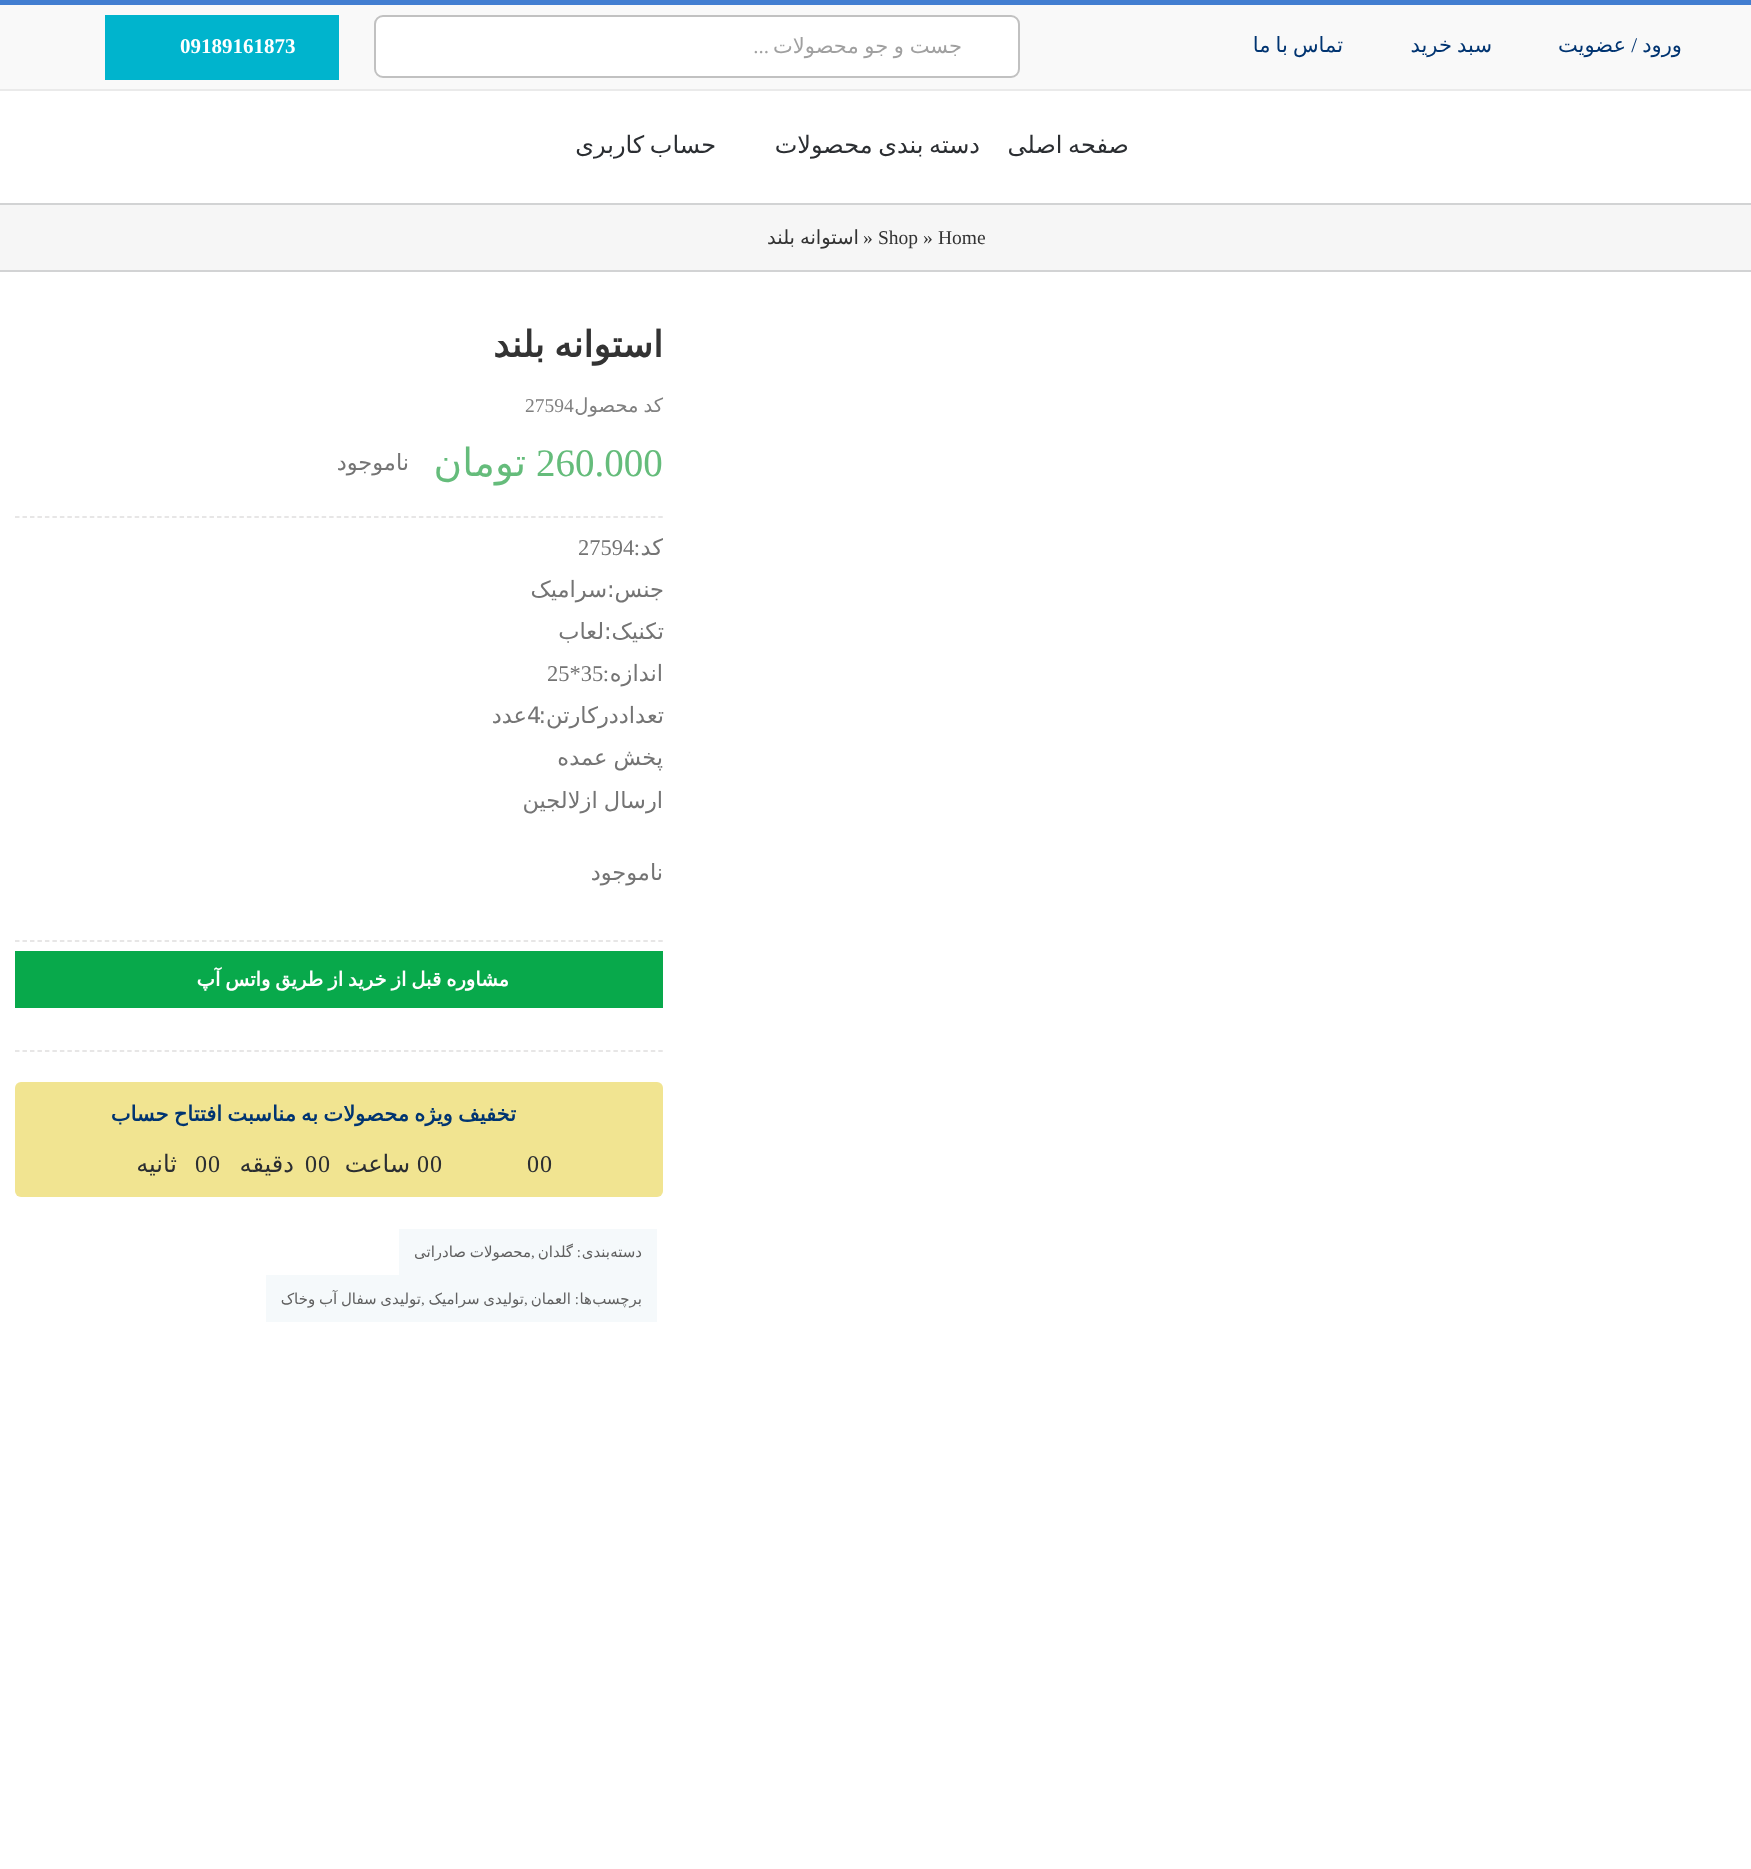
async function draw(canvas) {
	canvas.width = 1751;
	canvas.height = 1869;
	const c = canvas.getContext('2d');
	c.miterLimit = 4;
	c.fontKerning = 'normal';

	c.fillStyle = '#fff';
	c.fillRect(0, 0, 1751, 1869);
	c.fillStyle = '#f9f9f9';
	c.fillRect(0, 5, 1751, 84);
	c.fillStyle = '#427ed1';
	c.fillRect(0, 0, 1751, 5);
	c.direction = 'rtl';
	c.font = '21px DejaVu Sans';
	c.fillStyle = '#003471';
	c.fillText('ورود', 1682, 52);
	c.font = '21px Liberation Serif';
	c.fillText('/', 1637, 52);
	c.font = '21px DejaVu Sans';
	c.fillText('عضویت', 1626, 52);
	c.wordSpacing = '-1.5px';
	c.fillText('سبد خرید', 1492, 52);
	c.fillText('تماس با ما', 1343, 52);
	c.fillStyle = '#fff';
	c.beginPath();
	c.roundRect(375, 16, 644, 61, 8);
	c.fill();
	c.strokeStyle = '#c1c1c1';
	c.lineWidth = 2;
	c.stroke();
	c.save();
	c.beginPath();
	c.rect(459, 33, 503, 26);
	c.clip();
	c.wordSpacing = '-1px';
	c.fillStyle = '#a0a0a0';
	c.fillText('جست و جو محصولات', 962, 53);
	c.restore();
	c.wordSpacing = '0px';
	c.font = '21px Liberation Serif';
	c.fillStyle = '#a0a0a0';
	c.fillText('...', 769, 53);
	c.fillStyle = '#00b4cd';
	c.fillRect(105, 15, 234, 65);
	c.direction = 'ltr';
	c.font = 'bold 21px Liberation Serif';
	c.fillStyle = '#fff';
	c.fillText('09189161873', 180, 53);
	c.fillStyle = '#eaeaea';
	c.fillRect(0, 89, 1751, 2);
	c.wordSpacing = '-2px';
	c.direction = 'rtl';
	c.font = '24px DejaVu Sans';
	c.fillStyle = '#2b2e32';
	for (const [text, x, y] of [
		['صفحه اصلی', 1129, 153],
		['دسته بندی محصولات', 980, 153],
		['حساب کاربری', 716, 153],
	]) {
		c.fillText(text, x, y);
	}
	for (const [x, y, w, h, color] of [
		[0, 205, 1751, 65, '#f6f6f6'],
		[0, 203, 1751, 2, '#d2d3d4'],
		[0, 270, 1751, 2, '#d2d3d4'],
	]) {
		c.fillStyle = color;
		c.fillRect(x, y, w, h);
	}
	c.wordSpacing = '0px';
	c.direction = 'ltr';
	c.font = '19.5px Liberation Serif';
	c.fillStyle = '#333';
	for (const [text, x, y] of [
		['Home', 938, 244],
		['»', 923, 244],
		['Shop', 878, 244],
		['»', 863, 244],
	]) {
		c.fillText(text, x, y);
	}
	c.wordSpacing = '-1.25px';
	c.direction = 'rtl';
	c.font = '19.5px DejaVu Sans';
	c.fillText('استوانه بلند', 859, 244);
	c.wordSpacing = '-2px';
	c.font = 'bold 36px DejaVu Sans';
	c.fillText('استوانه بلند', 663, 357);
	c.wordSpacing = '-1.25px';
	c.font = '19.5px DejaVu Sans';
	c.fillStyle = '#808080';
	c.fillText('کد محصول', 663, 412);
	c.wordSpacing = '0px';
	c.direction = 'ltr';
	c.font = '19.5px Liberation Serif';
	c.fillText('27594', 525, 412);
	c.font = '39px Liberation Serif';
	c.fillStyle = '#65bc7b';
	c.fillText('260.000', 536, 476);
	c.direction = 'rtl';
	c.font = '39px DejaVu Sans';
	c.fillText('تومان', 526, 476);
	c.font = '22.5px DejaVu Sans';
	c.fillStyle = '#747474';
	c.fillText('ناموجود', 409, 470);
	c.beginPath();
	c.moveTo(15, 517);
	c.lineTo(663, 517);
	c.strokeStyle = '#e0dede';
	c.lineWidth = 1.5;
	c.setLineDash([4.5, 2.98]);
	c.stroke();
	c.fillText('کد', 663, 555);
	c.font = '22.5px Liberation Serif';
	c.fillText(':', 640, 555);
	c.direction = 'ltr';
	c.fillText('27594', 578, 555);
	c.direction = 'rtl';
	c.font = '22.5px DejaVu Sans';
	for (const [text, x, y] of [
		['جنس:سرامیک', 664, 597],
		['تکنیک:لعاب', 664, 639],
		['اندازه', 663, 681],
	]) {
		c.fillText(text, x, y);
	}
	c.font = '22.5px Liberation Serif';
	c.fillText(':', 609, 681);
	c.direction = 'ltr';
	c.fillText('25*35', 547, 681);
	c.font = '22.5px DejaVu Sans';
	c.fillText('4', 527, 723);
	c.direction = 'rtl';
	c.fillText('تعداددرکارتن:', 664, 723);
	c.fillText('عدد', 527, 723);
	c.wordSpacing = '-1px';
	c.fillText('پخش عمده', 663, 765);
	c.fillText('ارسال ازلالجین', 663, 808);
	c.wordSpacing = '0px';
	c.fillText('ناموجود', 663, 880);
	c.beginPath();
	c.moveTo(15, 941);
	c.lineTo(663, 941);
	c.stroke();
	c.fillStyle = '#08a94b';
	c.fillRect(15, 951, 648, 57);
	c.wordSpacing = '-1.25px';
	c.font = 'bold 19.5px DejaVu Sans';
	c.fillStyle = '#fff';
	c.fillText('مشاوره قبل از خرید از طریق واتس آپ', 509, 986);
	c.beginPath();
	c.moveTo(15, 1051);
	c.lineTo(663, 1051);
	c.stroke();
	c.fillStyle = '#f1e491';
	c.beginPath();
	c.roundRect(15, 1082, 648, 58, [6, 6, 0, 0]);
	c.fill();
	c.wordSpacing = '-1.5px';
	c.font = 'bold 21px DejaVu Sans';
	c.fillStyle = '#003471';
	c.fillText('تخفیف ویژه محصولات به مناسبت افتتاح حساب', 516, 1121);
	c.fillStyle = '#f1e491';
	c.beginPath();
	c.roundRect(15, 1140, 648, 57, [0, 0, 6, 6]);
	c.fill();
	c.wordSpacing = '0px';
	c.direction = 'ltr';
	c.font = '24px Liberation Serif';
	c.fillStyle = '#2b2e32';
	for (const [text, x, y] of [
		['0', 540, 1172],
		['0', 527, 1172],
		['0', 430, 1172],
		['0', 417, 1172],
	]) {
		c.fillText(text, x, y);
	}
	c.direction = 'rtl';
	c.font = '24px DejaVu Sans';
	c.fillText('ساعت', 410, 1172);
	c.direction = 'ltr';
	c.font = '24px Liberation Serif';
	c.fillText('0', 318, 1172);
	c.fillText('0', 305, 1172);
	c.direction = 'rtl';
	c.font = '24px DejaVu Sans';
	c.fillText('دقیقه', 294, 1172);
	c.direction = 'ltr';
	c.font = '24px Liberation Serif';
	c.fillText('0', 208, 1172);
	c.fillText('0', 195, 1172);
	c.direction = 'rtl';
	c.font = '24px DejaVu Sans';
	c.fillText('ثانیه', 177, 1172);
	c.fillStyle = '#f5f9fb';
	c.fillRect(399, 1229, 258, 46);
	c.font = '15px DejaVu Sans';
	c.fillStyle = '#606060';
	c.fillText('دسته', 642, 1257);
	c.fillText('بندی', 610, 1257);
	c.font = '15px Liberation Serif';
	c.fillText(':', 581, 1257);
	c.font = '15px DejaVu Sans';
	c.fillText('گلدان', 573, 1257);
	c.direction = 'ltr';
	c.font = '15px Liberation Serif';
	c.fillText(',', 531, 1257);
	c.wordSpacing = '-1px';
	c.direction = 'rtl';
	c.font = '15px DejaVu Sans';
	c.fillText('محصولات صادراتی', 531, 1257);
	c.fillStyle = '#f5f9fb';
	c.fillRect(266, 1275, 391, 47);
	c.wordSpacing = '0px';
	c.fillStyle = '#606060';
	c.fillText('برچسب', 642, 1304);
	c.fillText('ها', 592, 1304);
	c.font = '15px Liberation Serif';
	c.fillText(':', 579, 1304);
	c.font = '15px DejaVu Sans';
	c.fillText('العمان', 571, 1304);
	c.direction = 'ltr';
	c.font = '15px Liberation Serif';
	c.fillText(',', 524, 1304);
	c.wordSpacing = '-1px';
	c.direction = 'rtl';
	c.font = '15px DejaVu Sans';
	c.fillText('تولیدی سرامیک', 524, 1304);
	c.wordSpacing = '0px';
	c.direction = 'ltr';
	c.font = '15px Liberation Serif';
	c.fillText(',', 421, 1304);
	c.wordSpacing = '-1px';
	c.direction = 'rtl';
	c.font = '15px DejaVu Sans';
	c.fillText('تولیدی سفال آب وخاک', 421, 1304);
}

draw(document.querySelector('canvas'));
